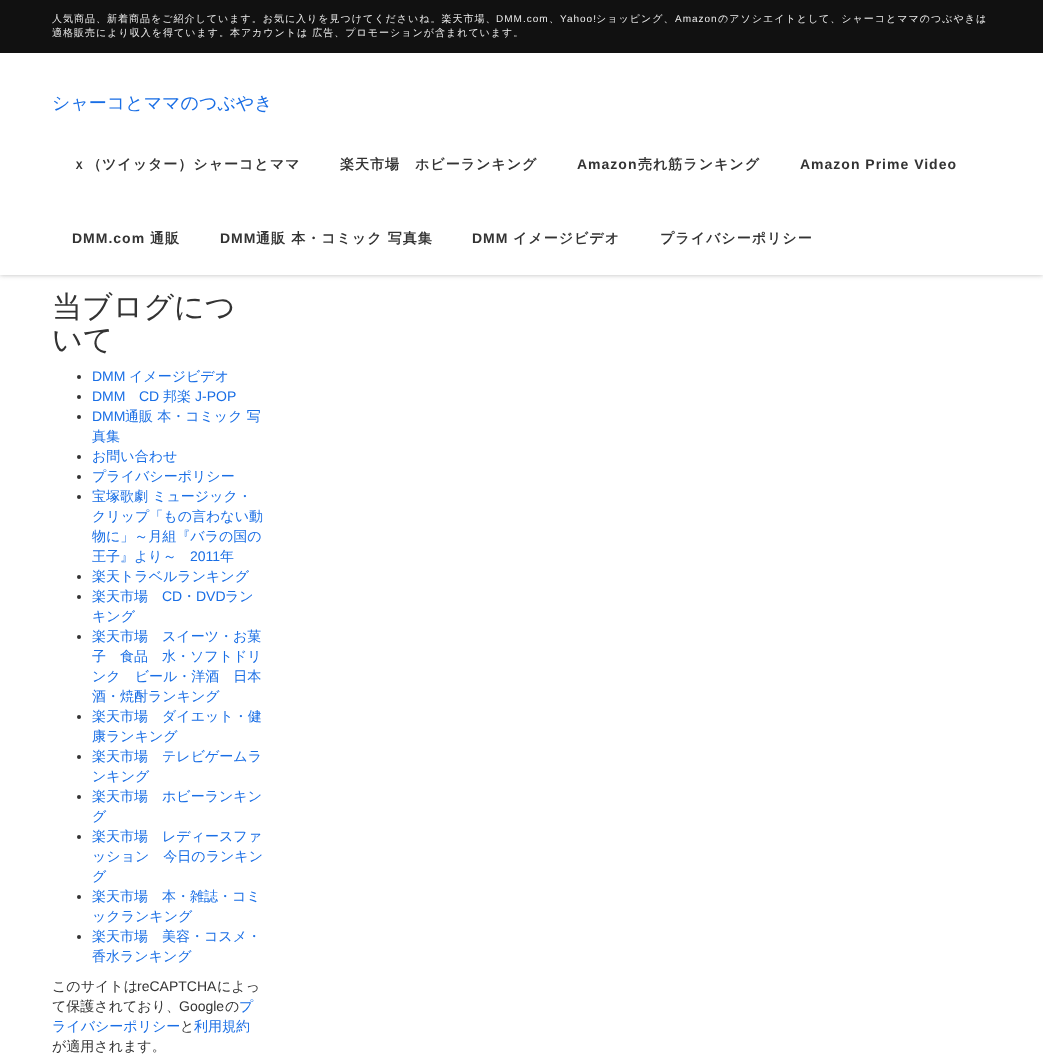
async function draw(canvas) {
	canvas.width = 1043;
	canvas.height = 1056;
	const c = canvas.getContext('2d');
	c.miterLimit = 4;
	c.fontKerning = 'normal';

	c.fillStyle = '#fff';
	c.fillRect(0, 0, 1043, 1056);
	c.fillStyle = '#bbb';
	c.filter = 'blur(2.5px)';
	c.beginPath();
	c.rect(0, 0, 1043, 275);
	c.fill();
	c.filter = 'none';
	c.fillStyle = '#fff';
	c.fillRect(0, 53, 1043, 222);
	c.fillStyle = '#111';
	c.fillRect(0, 0, 1043, 53);
	c.letterSpacing = '1px';
	c.font = '500 10px WenQuanYi Zen Hei';
	c.fillStyle = '#eee';
	c.fillText('人気商品、新着商品をご紹介しています。お気に入りを見つけてくださいね。楽天市場、', 52, 22);
	c.font = '10px Liberation Sans';
	c.fillText('DMM.com', 496, 22);
	c.font = '500 10px WenQuanYi Zen Hei';
	c.fillText('、', 549, 22);
	c.font = '10px Liberation Sans';
	c.fillText('Yahoo!', 560, 22);
	c.font = '500 10px WenQuanYi Zen Hei';
	c.fillText('ショッピング、', 596, 22);
	c.font = '10px Liberation Sans';
	c.fillText('Amazon', 675, 22);
	c.font = '500 10px WenQuanYi Zen Hei';
	c.fillText('のアソシエイトとして、シャーコとママのつぶやきは', 718, 22);
	c.fillText('適格販売により収入を得ています。本アカウントは 広告、プロモーションが含まれています。', 52, 36);
	c.letterSpacing = '0px';
	c.font = '500 18px WenQuanYi Zen Hei';
	c.fillStyle = '#196ee5';
	c.fillText('シャーコとママのつぶやき', 52, 109);
	c.letterSpacing = '1px';
	c.font = 'bold 14px WenQuanYi Zen Hei';
	c.fillStyle = '#333';
	c.fillText('ｘ（ツイッター）シャーコとママ', 72, 169);
	c.fillText('楽天市場　ホビーランキング', 340, 169);
	c.font = 'bold 14px Liberation Sans';
	c.fillText('Amazon', 577, 169);
	c.font = 'bold 14px WenQuanYi Zen Hei';
	c.fillText('売れ筋ランキング', 638, 169);
	c.font = 'bold 14px Liberation Sans';
	c.fillText('Amazon Prime Video', 800, 169);
	c.fillText('DMM.com', 72, 243);
	c.font = 'bold 14px WenQuanYi Zen Hei';
	c.fillText('通販', 150, 243);
	c.font = 'bold 14px Liberation Sans';
	c.fillText('DMM', 220, 243);
	c.font = 'bold 14px WenQuanYi Zen Hei';
	c.fillText('通販 本・コミック 写真集', 256, 243);
	c.font = 'bold 14px Liberation Sans';
	c.fillText('DMM', 472, 243);
	c.font = 'bold 14px WenQuanYi Zen Hei';
	c.fillText('イメージビデオ', 513, 243);
	c.fillText('プライバシーポリシー', 660, 243);
	c.letterSpacing = '0px';
	c.font = '500 30px WenQuanYi Zen Hei';
	c.fillText('当ブログにつ', 52, 317);
	c.fillText('いて', 52, 350);
	c.beginPath();
	c.arc(79, 377, 2, 0, 2 * Math.PI);
	c.fill();
	c.font = '14px Liberation Sans';
	c.fillStyle = '#196ee5';
	c.fillText('DMM', 92, 381);
	c.font = '500 14px WenQuanYi Zen Hei';
	c.fillText('イメージビデオ', 129, 381);
	c.fillStyle = '#333';
	c.beginPath();
	c.arc(79, 397, 2, 0, 2 * Math.PI);
	c.fill();
	c.font = '14px Liberation Sans';
	c.fillStyle = '#196ee5';
	c.fillText('DMM', 92, 401);
	c.fillText('CD', 139, 401);
	c.font = '500 14px WenQuanYi Zen Hei';
	c.fillText('邦楽', 163, 401);
	c.font = '14px Liberation Sans';
	c.fillText('J-POP', 195, 401);
	c.fillStyle = '#333';
	c.beginPath();
	c.arc(79, 417, 2, 0, 2 * Math.PI);
	c.fill();
	c.fillStyle = '#196ee5';
	c.fillText('DMM', 92, 421);
	c.font = '500 14px WenQuanYi Zen Hei';
	c.fillText('通販 本・コミック 写', 125, 421);
	c.fillText('真集', 92, 441);
	c.fillStyle = '#333';
	c.beginPath();
	c.arc(79, 457, 2, 0, 2 * Math.PI);
	c.fill();
	c.fillStyle = '#196ee5';
	c.fillText('お問い合わせ', 92, 461);
	c.fillStyle = '#333';
	c.beginPath();
	c.arc(79, 477, 2, 0, 2 * Math.PI);
	c.fill();
	c.fillStyle = '#196ee5';
	c.fillText('プライバシーポリシー', 92, 481);
	c.fillStyle = '#333';
	c.beginPath();
	c.arc(79, 497, 2, 0, 2 * Math.PI);
	c.fill();
	c.fillStyle = '#196ee5';
	for (const [text, x, y] of [
		['宝塚歌劇 ミュージック・', 92, 501],
		['クリップ「もの言わない動', 92, 521],
		['物に」～月組『バラの国の', 92, 541],
		['王子』より～', 92, 561],
	]) {
		c.fillText(text, x, y);
	}
	c.font = '14px Liberation Sans';
	c.fillText('2011', 190, 561);
	c.font = '500 14px WenQuanYi Zen Hei';
	c.fillText('年', 220, 561);
	c.fillStyle = '#333';
	c.beginPath();
	c.arc(79, 577, 2, 0, 2 * Math.PI);
	c.fill();
	c.fillStyle = '#196ee5';
	c.fillText('楽天トラベルランキング', 92, 581);
	c.fillStyle = '#333';
	c.beginPath();
	c.arc(79, 597, 2, 0, 2 * Math.PI);
	c.fill();
	c.fillStyle = '#196ee5';
	c.fillText('楽天市場', 92, 601);
	c.font = '14px Liberation Sans';
	c.fillText('CD', 162, 601);
	c.font = '500 14px WenQuanYi Zen Hei';
	c.fillText('・', 182, 601);
	c.font = '14px Liberation Sans';
	c.fillText('DVD', 196, 601);
	c.font = '500 14px WenQuanYi Zen Hei';
	c.fillText('ラン', 225, 601);
	c.fillText('キング', 92, 621);
	c.fillStyle = '#333';
	c.beginPath();
	c.arc(79, 637, 2, 0, 2 * Math.PI);
	c.fill();
	c.fillStyle = '#196ee5';
	for (const [text, x, y] of [
		['楽天市場　スイーツ・お菓', 92, 641],
		['子　食品　水・ソフトドリ', 92, 661],
		['ンク　ビール・洋酒　日本', 92, 681],
		['酒・焼酎ランキング', 92, 701],
	]) {
		c.fillText(text, x, y);
	}
	c.fillStyle = '#333';
	c.beginPath();
	c.arc(79, 717, 2, 0, 2 * Math.PI);
	c.fill();
	c.fillStyle = '#196ee5';
	c.fillText('楽天市場　ダイエット・健', 92, 721);
	c.fillText('康ランキング', 92, 741);
	c.fillStyle = '#333';
	c.beginPath();
	c.arc(79, 757, 2, 0, 2 * Math.PI);
	c.fill();
	c.fillStyle = '#196ee5';
	c.fillText('楽天市場　テレビゲームラ', 92, 761);
	c.fillText('ンキング', 92, 781);
	c.fillStyle = '#333';
	c.beginPath();
	c.arc(79, 797, 2, 0, 2 * Math.PI);
	c.fill();
	c.fillStyle = '#196ee5';
	c.fillText('楽天市場　ホビーランキン', 92, 801);
	c.fillText('グ', 92, 821);
	c.fillStyle = '#333';
	c.beginPath();
	c.arc(79, 837, 2, 0, 2 * Math.PI);
	c.fill();
	c.fillStyle = '#196ee5';
	for (const [text, x, y] of [
		['楽天市場　レディースファ', 92, 841],
		['ッション　今日のランキン', 92, 861],
		['グ', 92, 881],
	]) {
		c.fillText(text, x, y);
	}
	c.fillStyle = '#333';
	c.beginPath();
	c.arc(79, 897, 2, 0, 2 * Math.PI);
	c.fill();
	c.fillStyle = '#196ee5';
	c.fillText('楽天市場　本・雑誌・コミ', 92, 901);
	c.fillText('ックランキング', 92, 921);
	c.fillStyle = '#333';
	c.beginPath();
	c.arc(79, 937, 2, 0, 2 * Math.PI);
	c.fill();
	c.fillStyle = '#196ee5';
	c.fillText('楽天市場　美容・コスメ・', 92, 941);
	c.fillText('香水ランキング', 92, 961);
	c.fillStyle = '#333';
	c.fillText('このサイトは', 52, 991);
	c.font = '14px Liberation Sans';
	c.fillText('reCAPTCHA', 137, 991);
	c.font = '500 14px WenQuanYi Zen Hei';
	c.fillText('によっ', 217, 991);
	c.fillText('て保護されており、', 52, 1011);
	c.font = '14px Liberation Sans';
	c.fillText('Google', 179, 1011);
	c.font = '500 14px WenQuanYi Zen Hei';
	c.fillText('の', 225, 1011);
	c.fillStyle = '#196ee5';
	c.fillText('プ', 239, 1011);
	c.fillText('ライバシーポリシー', 52, 1031);
	c.fillStyle = '#333';
	c.fillText('と', 180, 1031);
	c.fillStyle = '#196ee5';
	c.fillText('利用規約', 194, 1031);
	c.fillStyle = '#333';
	c.fillText('が適用されます。', 52, 1051);
}

draw(document.querySelector('canvas'));
